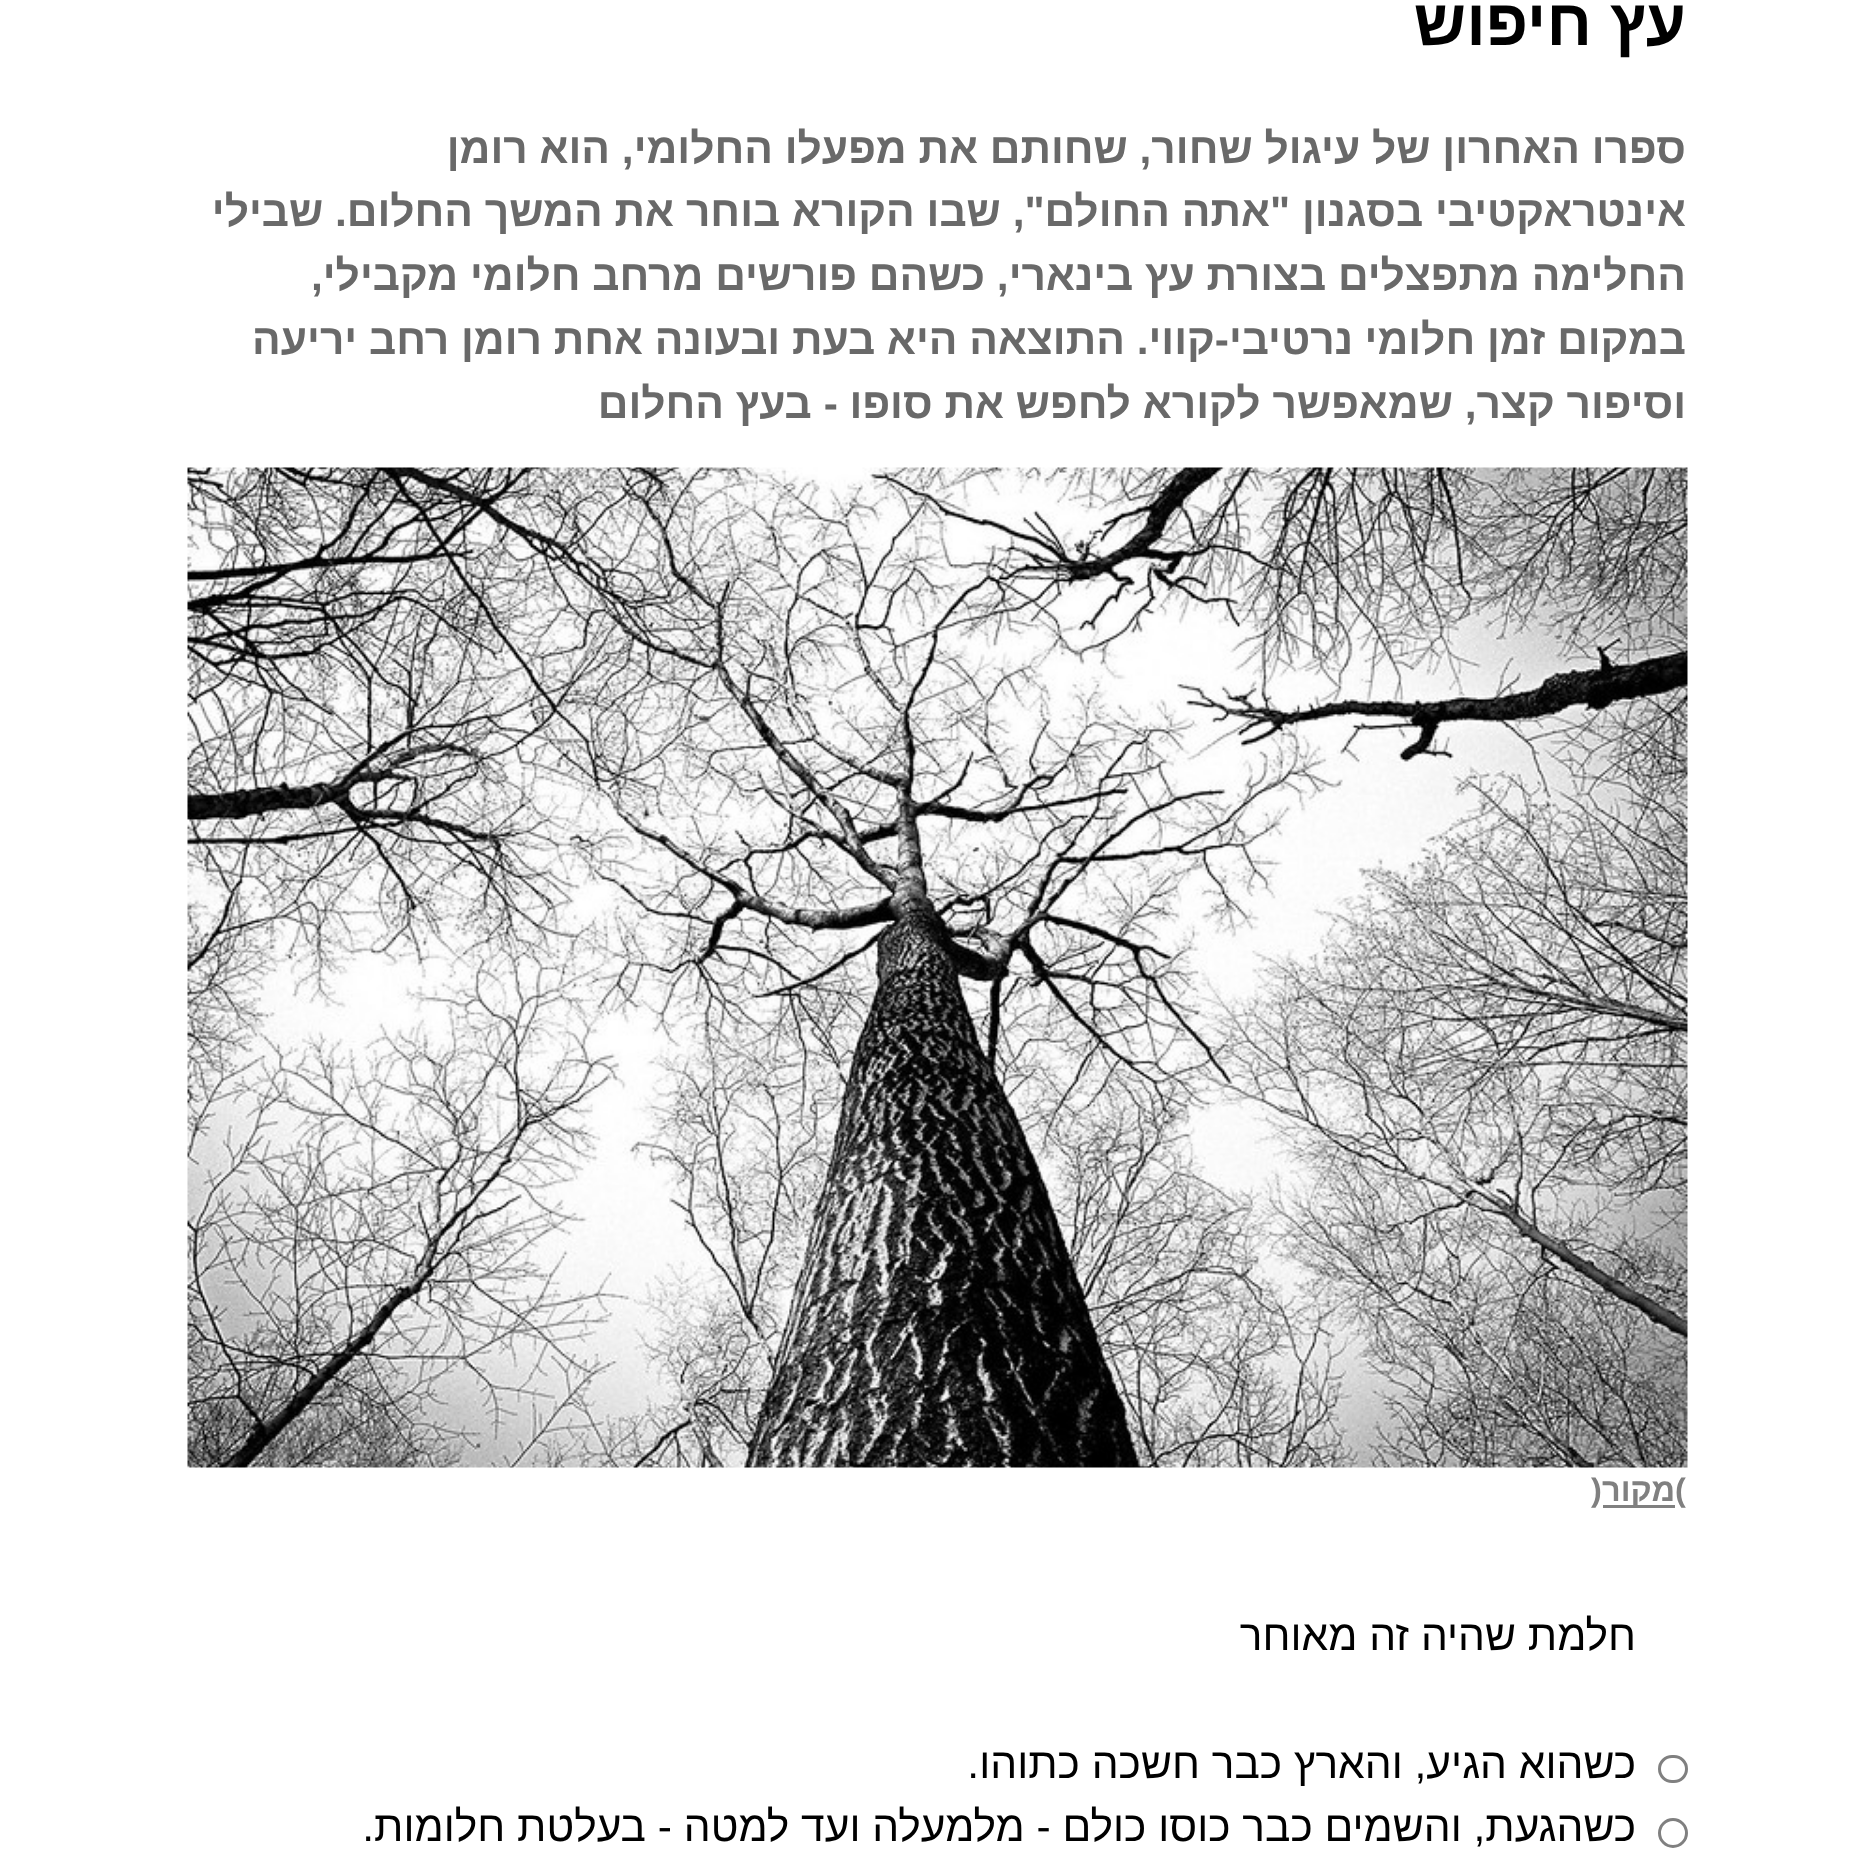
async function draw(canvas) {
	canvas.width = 1872;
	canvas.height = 1862;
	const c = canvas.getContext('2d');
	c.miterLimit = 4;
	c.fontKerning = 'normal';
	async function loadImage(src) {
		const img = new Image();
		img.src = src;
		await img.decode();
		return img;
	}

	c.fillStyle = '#fff';
	c.fillRect(0, 0, 1872, 1862);
	c.direction = 'rtl';
	c.font = 'bold 65px Liberation Sans';
	c.fillStyle = '#000';
	c.fillText('עץ חיפוש', 1686, 45);
	c.font = 'bold 42.5px Liberation Sans';
	c.fillStyle = '#696969';
	for (const [text, x, y] of [
		['ספרו האחרון של עיגול שחור, שחותם את מפעלו החלומי, הוא רומן', 1686, 163],
		['אינטראקטיבי בסגנון "אתה החולם", שבו הקורא בוחר', 1686, 226],
		['את המשך החלום. שבילי', 674, 226],
		['החלימה מתפצלים בצורת עץ בינארי, כשהם פורשים מרחב חלומי מקבילי,', 1686, 290],
		['במקום זמן חלומי', 1686, 354],
		['נרטיבי-קווי. התוצאה היא בעת ובעונה אחת רומן רחב יריעה', 1353, 354],
		['וסיפור קצר, שמאפשר לקורא לחפש את סופו - בעץ החלום', 1686, 418],
	]) {
		c.fillText(text, x, y);
	}
	c.drawImage(await loadImage('img1.png'), 187, 467, 1501, 1001);
	c.direction = 'ltr';
	c.font = 'bold 32.5px Liberation Sans';
	c.fillStyle = '#808080';
	c.fillText('(', 1675, 1501);
	c.fillRect(1603, 1505, 72, 3);
	c.direction = 'rtl';
	c.fillText('מקור', 1675, 1501);
	c.direction = 'ltr';
	c.fillText(')', 1591, 1501);
	c.direction = 'rtl';
	c.font = '42.5px Liberation Sans';
	c.fillStyle = '#000';
	c.fillText('חלמת שהיה זה מאוחר', 1636, 1650);
	c.beginPath();
	c.roundRect(1659.5, 1756.5, 27, 25, 12.5);
	c.strokeStyle = '#808080';
	c.lineWidth = 3;
	c.stroke();
	c.fillText('כשהוא הגיע, והארץ כבר חשכה כתוהו.', 1636, 1778);
	c.beginPath();
	c.arc(1673, 1833, 13.5, 0, 2 * Math.PI);
	c.stroke();
	c.fillText('כשהגעת, והשמים כבר כוסו כולם - מלמעלה ועד למטה - בעלטת חלומות.', 1636, 1841);
}

draw(document.querySelector('canvas'));
